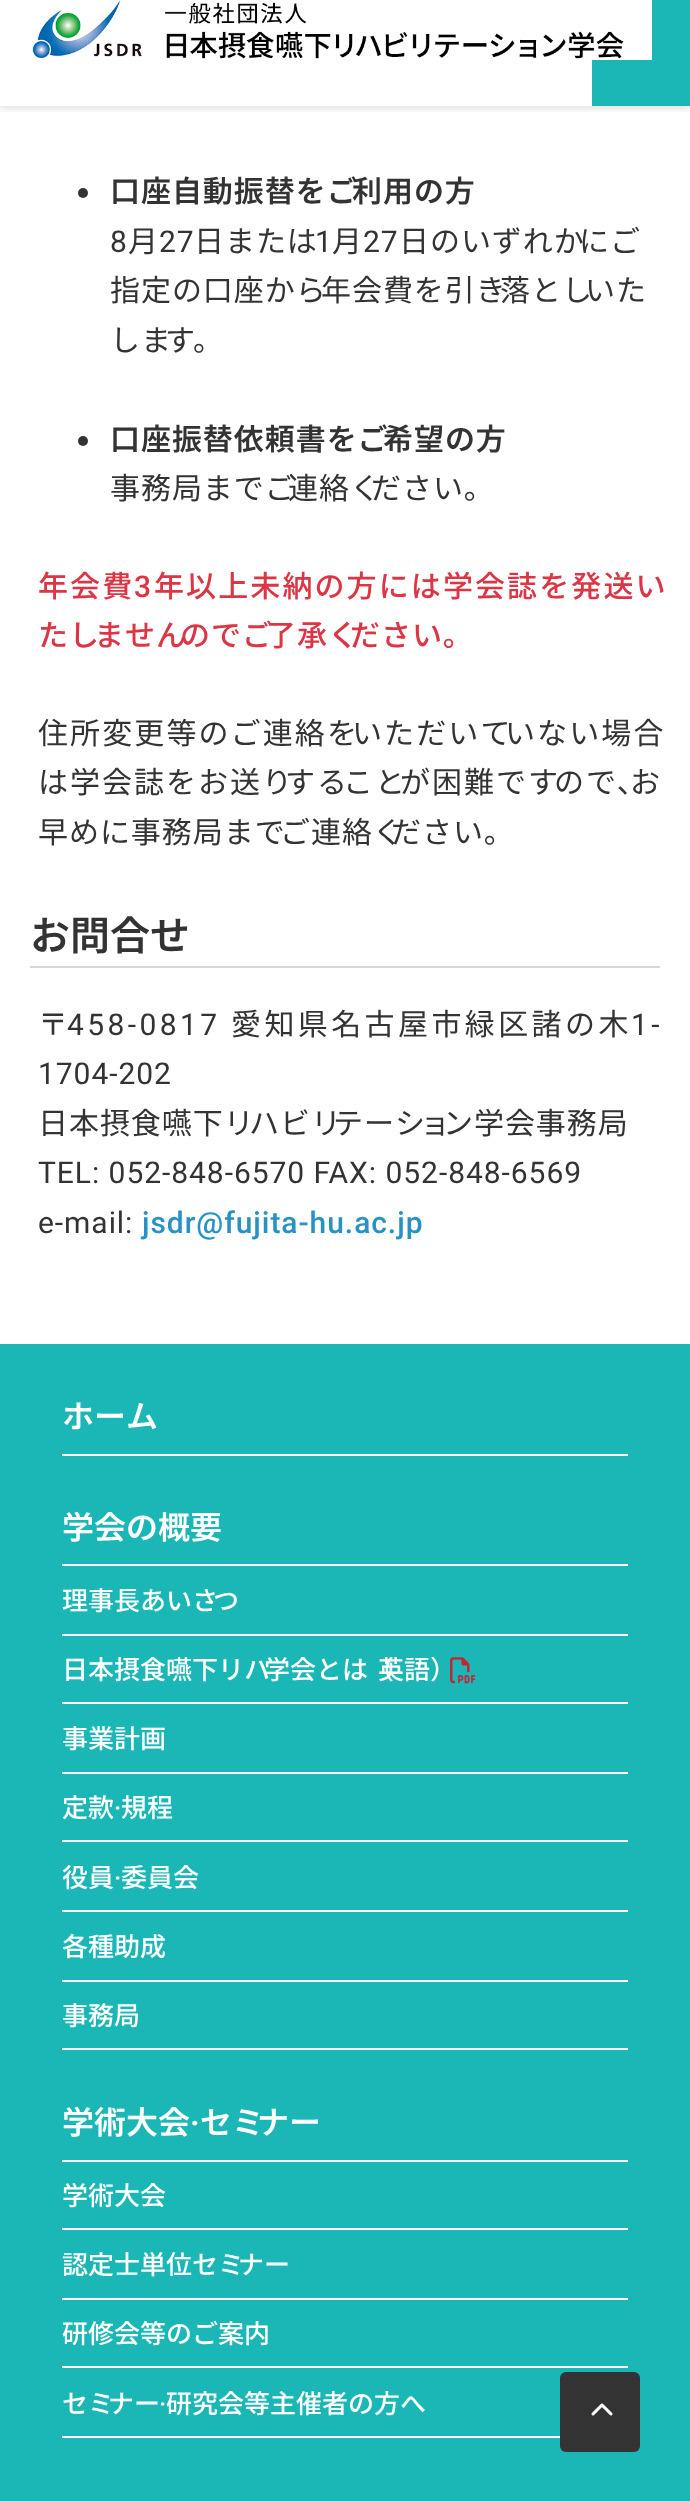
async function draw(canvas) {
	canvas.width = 690;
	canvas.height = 2501;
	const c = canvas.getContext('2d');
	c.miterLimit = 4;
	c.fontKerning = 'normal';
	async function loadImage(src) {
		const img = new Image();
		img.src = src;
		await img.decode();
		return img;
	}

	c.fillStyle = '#fff';
	c.fillRect(0, 0, 690, 2501);
	c.save();
	c.beginPath();
	c.rect(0, 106, 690, 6);
	c.clip();
	c.fillStyle = '#00000024';
	c.filter = 'blur(4px)';
	c.beginPath();
	c.rect(0, 2, 690, 106);
	c.fill();
	c.filter = 'none';
	c.restore();
	c.fillStyle = '#1bb6b6';
	c.fillRect(592, 0, 98, 106);
	c.drawImage(await loadImage('img1.png'), 32, 0, 620, 60);
	c.fillStyle = '#333';
	c.beginPath();
	c.arc(83, 193, 5, 0, 2 * Math.PI);
	c.fill();
	c.letterSpacing = '0.95px';
	c.font = '600 30px Noto Sans JP';
	c.fillText('口座自動振替をご', 110, 202);
	c.fillText('利用の方', 352, 202);
	c.font = '30px Roboto';
	c.fillText('8', 110, 252);
	c.font = '30px Noto Sans JP';
	c.fillText('月', 128, 252);
	c.font = '30px Roboto';
	c.fillText('27', 159, 252);
	c.font = '30px Noto Sans JP';
	c.fillText('日または', 194, 252);
	c.font = '30px Roboto';
	c.fillText('1', 315, 252);
	c.font = '30px Noto Sans JP';
	c.fillText('月', 332, 252);
	c.font = '30px Roboto';
	c.fillText('27', 363, 252);
	c.font = '30px Noto Sans JP';
	for (const [text, x, y] of [
		['日のいずれか', 399, 252],
		['にご', 579, 252],
		['指定の口座から', 110, 301],
		['年会費を引き', 321, 301],
		['落とし', 500, 301],
		['いた', 585, 301],
		['しま', 110, 351],
		['す。', 165, 351],
	]) {
		c.fillText(text, x, y);
	}
	c.beginPath();
	c.arc(83, 441, 5, 0, 2 * Math.PI);
	c.fill();
	c.font = '600 30px Noto Sans JP';
	c.fillText('口座振替依頼書をご', 110, 450);
	c.fillText('希望の方', 383, 450);
	c.font = '30px Noto Sans JP';
	c.fillText('事務局までご', 110, 499);
	c.fillText('連絡く', 288, 499);
	c.fillText('ださい。', 371, 499);
	c.letterSpacing = '2.1px';
	c.font = '500 30px Noto Sans JP';
	c.fillStyle = '#dc3545';
	c.fillText('年会費', 38, 597);
	c.font = '500 30px Roboto';
	c.fillText('3', 134, 597);
	c.font = '500 30px Noto Sans JP';
	c.fillText('年以上未納の方には学会誌を発送い', 154, 597);
	c.letterSpacing = '0.95px';
	c.fillText('たし', 38, 646);
	c.fillText('ません', 94, 646);
	c.fillText('のでご', 180, 646);
	c.fillText('了承く', 266, 646);
	c.fillText('ださい。', 350, 646);
	c.letterSpacing = '2.1px';
	c.font = '30px Noto Sans JP';
	c.fillStyle = '#333';
	c.fillText('住所変更等のご連絡を', 38, 744);
	c.fillText('いただいて', 352, 744);
	c.fillText('いない場合', 505, 744);
	c.letterSpacing = '2px';
	c.fillText('は学会誌をお送り', 38, 793);
	c.fillText('する', 285, 793);
	c.fillText('こと', 343, 793);
	c.fillText('が困難です', 400, 793);
	c.fillText('ので、', 554, 793);
	c.fillText('お', 630, 793);
	c.letterSpacing = '0.95px';
	c.fillText('早めに事務局まで', 38, 843);
	c.fillText('ご連絡く', 280, 843);
	c.fillText('ださい。', 391, 843);
	c.fillStyle = '#d7d7d7';
	c.fillRect(30, 966, 630, 2);
	c.letterSpacing = '0px';
	c.font = '600 40px Noto Sans JP';
	c.fillStyle = '#333';
	c.fillText('お問合せ', 30, 950);
	c.letterSpacing = '3.4px';
	c.font = '30px Noto Sans JP';
	c.fillText('〒', 38, 1035);
	c.font = '30px Roboto';
	c.fillText('458-0817', 67, 1035);
	c.font = '30px Noto Sans JP';
	c.fillText('愛知県名古屋市緑区諸の木', 231, 1035);
	c.font = '30px Roboto';
	c.fillText('1-', 631, 1035);
	c.letterSpacing = '0.95px';
	c.fillText('1704-202', 38, 1084);
	c.font = '30px Noto Sans JP';
	c.fillText('日本摂食嚥下リ', 38, 1134);
	c.fillText('ハビリ', 249, 1134);
	c.fillText('テーシ', 333, 1134);
	c.fillText('ョ', 420, 1134);
	c.fillText('ン学会事務局', 443, 1134);
	c.font = '30px Roboto';
	c.fillText('TEL: 052-848-6570 FAX: 052-848-6569', 38, 1183);
	c.fillText('e-mail:', 38, 1233);
	c.font = '500 30px Roboto';
	c.fillStyle = '#2792c3';
	c.fillText('jsdr@fujita-hu.ac.jp', 142, 1233);
	c.fillStyle = '#1bb6b6';
	c.fillRect(0, 1344, 690, 1157);
	c.fillStyle = '#fff';
	c.fillRect(62, 1454, 566, 2);
	c.letterSpacing = '0px';
	c.font = '600 32px Noto Sans JP';
	c.fillText('ホーム', 62, 1428);
	c.fillRect(62, 1564, 566, 2);
	c.fillText('学会の概要', 62, 1539);
	c.fillRect(62, 1634, 566, 2);
	c.font = '500 26px Noto Sans JP';
	c.fillText('理事長あいさ', 62, 1610);
	c.fillText('つ', 213, 1610);
	c.fillRect(62, 1702, 566, 2);
	c.fillText('日本摂食嚥下リハ', 62, 1679);
	c.fillText('学会とは（', 264, 1679);
	c.fillText('英語）', 378, 1679);
	c.drawImage(await loadImage('img2.png'), 450, 1657, 26, 27);
	c.fillRect(62, 1772, 566, 2);
	c.fillText('事業計画', 62, 1748);
	c.fillRect(62, 1840, 566, 2);
	c.fillText('定款', 62, 1817);
	c.font = '500 26px Roboto';
	c.fillText('·', 114, 1817);
	c.font = '500 26px Noto Sans JP';
	c.fillText('規程', 121, 1817);
	c.fillRect(62, 1910, 566, 2);
	c.fillText('役員', 62, 1887);
	c.font = '500 26px Roboto';
	c.fillText('·', 114, 1887);
	c.font = '500 26px Noto Sans JP';
	c.fillText('委員会', 121, 1887);
	c.fillRect(62, 1980, 566, 2);
	c.fillText('各種助成', 62, 1956);
	c.fillRect(62, 2048, 566, 2);
	c.fillText('事務局', 62, 2025);
	c.fillRect(62, 2160, 566, 2);
	c.font = '600 32px Noto Sans JP';
	c.fillText('学術大会', 62, 2134);
	c.font = 'bold 32px Roboto';
	c.fillText('·', 190, 2134);
	c.font = '600 32px Noto Sans JP';
	c.fillText('セミ', 200, 2134);
	c.fillText('ナー', 257, 2134);
	c.fillRect(62, 2228, 566, 2);
	c.font = '500 26px Noto Sans JP';
	c.fillText('学術大会', 62, 2205);
	c.fillRect(62, 2298, 566, 2);
	c.fillText('認定士単位セミ', 62, 2274);
	c.fillText('ナー', 238, 2274);
	c.fillRect(62, 2366, 566, 2);
	c.fillText('研修会等のご案内', 62, 2343);
	c.fillRect(62, 2436, 498, 2);
	c.fillText('セミ', 62, 2413);
	c.fillText('ナー', 108, 2413);
	c.font = '500 26px Roboto';
	c.fillText('·', 159, 2413);
	c.font = '500 26px Noto Sans JP';
	c.fillText('研究会等主催者の方へ', 166, 2413);
	c.fillStyle = '#333';
	c.beginPath();
	c.roundRect(560, 2372, 80, 80, 6);
	c.fill();
	c.drawImage(await loadImage('img3.png'), 591, 2403, 22, 13);
}

draw(document.querySelector('canvas'));
